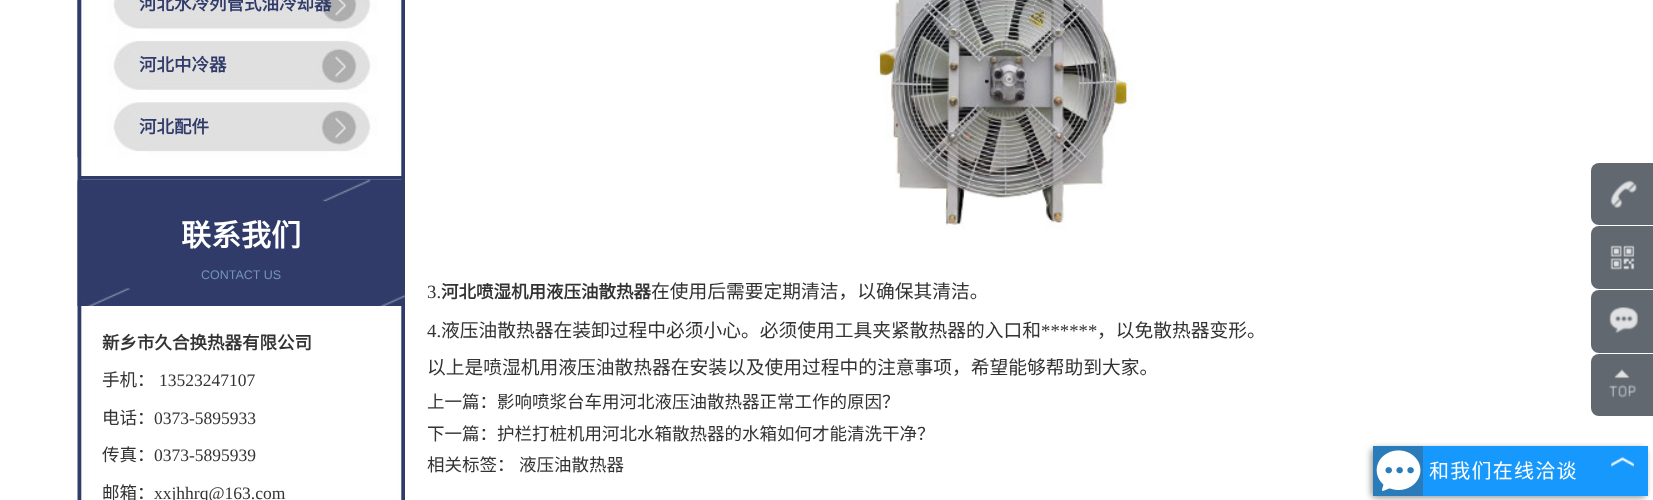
async function draw(canvas) {
	canvas.width = 1653;
	canvas.height = 500;
	const c = canvas.getContext('2d');
	c.miterLimit = 4;
	c.fontKerning = 'normal';
	async function loadImage(src) {
		const img = new Image();
		img.src = src;
		await img.decode();
		return img;
	}

	c.fillStyle = '#fff';
	c.fillRect(0, 0, 1653, 500);
	c.drawImage(await loadImage('img1.png'), 77, 0, 328, 180);
	c.fillStyle = '#303b69';
	c.fillRect(78, 176, 327, 4);
	c.drawImage(await loadImage('img2.png'), 77, 0, 325, 35);
	c.font = 'bold 17.5px Noto Sans CJK SC';
	c.fillText('河北水冷列管式油冷却器', 139, 10);
	c.drawImage(await loadImage('img3.png'), 77, 34, 325, 62);
	c.fillText('河北中冷器', 139, 71);
	c.drawImage(await loadImage('img4.png'), 77, 96, 325, 62);
	c.fillText('河北配件', 139, 133);
	c.drawImage(await loadImage('img5.png'), 77, 179, 328, 321);
	c.drawImage(await loadImage('img6.png'), 77, 179, 328, 127);
	c.font = 'bold 30px Noto Sans CJK SC';
	c.fillStyle = '#fff';
	c.fillText('联系我们', 181, 246);
	c.font = '12.5px Liberation Sans';
	c.fillStyle = '#7494b8';
	c.fillText('CONTACT US', 201, 279);
	c.font = 'bold 17.5px Noto Sans CJK SC';
	c.fillStyle = '#333';
	c.fillText('新乡市久合换热器有限公司', 102, 349);
	c.font = '17.5px Noto Sans CJK SC';
	c.fillText('手机：', 102, 386);
	c.font = '17.5px Liberation Serif';
	c.fillText('13523247107', 159, 386);
	c.font = '17.5px Noto Sans CJK SC';
	c.fillText('电话：', 102, 424);
	c.font = '17.5px Liberation Serif';
	c.fillText('0373-5895933', 154, 424);
	c.font = '17.5px Noto Sans CJK SC';
	c.fillText('传真：', 102, 461);
	c.font = '17.5px Liberation Serif';
	c.fillText('0373-5895939', 154, 461);
	c.font = '17.5px Noto Sans CJK SC';
	c.fillText('邮箱：', 102, 499);
	c.font = '17.5px Liberation Serif';
	c.fillText('xxjhhrq@163.com', 154, 499);
	c.drawImage(await loadImage('img7.png'), 875, 0, 260, 230);
	c.font = '18.75px Liberation Serif';
	c.fillText('3.', 427, 298);
	c.font = 'bold 17.5px Noto Sans CJK SC';
	c.fillText('河北喷湿机用液压油散热器', 441, 298);
	c.font = '18.75px Noto Sans CJK SC';
	c.fillText('在使用后需要定期清洁，以确保其清洁。', 651, 298);
	c.font = '18.75px Liberation Serif';
	c.fillText('4.', 427, 337);
	c.font = '18.75px Noto Sans CJK SC';
	c.fillText('液压油散热器在装卸过程中必须小心。必须使用工具夹紧散热器的入口和', 441, 337);
	c.font = '18.75px Liberation Serif';
	c.fillText('******', 1041, 337);
	c.font = '18.75px Noto Sans CJK SC';
	c.fillText('，以免散热器变形。', 1097, 337);
	c.fillText('以上是喷湿机用液压油散热器在安装以及使用过程中的注意事项，希望能够帮助到大家。', 427, 374);
	c.font = '17.5px Noto Sans CJK SC';
	for (const [text, x, y] of [
		['上一篇：影响喷浆台车用河北液压油散热器正常工作的原因？', 427, 408],
		['下一篇：护栏打桩机用河北水箱散热器的水箱如何才能清洗干净？', 427, 440],
		['相关标签：', 427, 471],
		['液压油散热器', 519, 471],
	]) {
		c.fillText(text, x, y);
	}
	c.fillStyle = '#61686f';
	c.beginPath();
	c.roundRect(1591, 163, 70, 62, 8);
	c.fill();
	c.drawImage(await loadImage('img8.png'), 1610, 180, 27, 28);
	c.beginPath();
	c.roundRect(1591, 226, 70, 63, 8);
	c.fill();
	c.drawImage(await loadImage('img9.png'), 1610, 245, 25, 25);
	c.beginPath();
	c.roundRect(1591, 290, 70, 63, 8);
	c.fill();
	c.drawImage(await loadImage('img10.png'), 1609, 307, 29, 26);
	c.beginPath();
	c.roundRect(1591, 354, 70, 62, 8);
	c.fill();
	c.drawImage(await loadImage('img11.png'), 1609, 369, 28, 29);
	c.fillStyle = '#00000066';
	c.filter = 'blur(3px)';
	c.beginPath();
	c.roundRect(1371, 448, 275, 50, 5);
	c.fill();
	c.filter = 'none';
	c.fillStyle = '#1798fc';
	c.fillRect(1423, 446, 225, 50);
	c.fillStyle = '#2a7bb9';
	c.fillRect(1373, 446, 50, 50);
	c.drawImage(await loadImage('img12.png'), 1376, 450, 45, 41);
	c.letterSpacing = '1.25px';
	c.font = '20px Noto Sans CJK SC';
	c.fillStyle = '#fff';
	c.fillText('和我们在线洽谈', 1429, 478);
	c.drawImage(await loadImage('img13.png'), 1611, 457, 23, 10);
}

draw(document.querySelector('canvas'));
